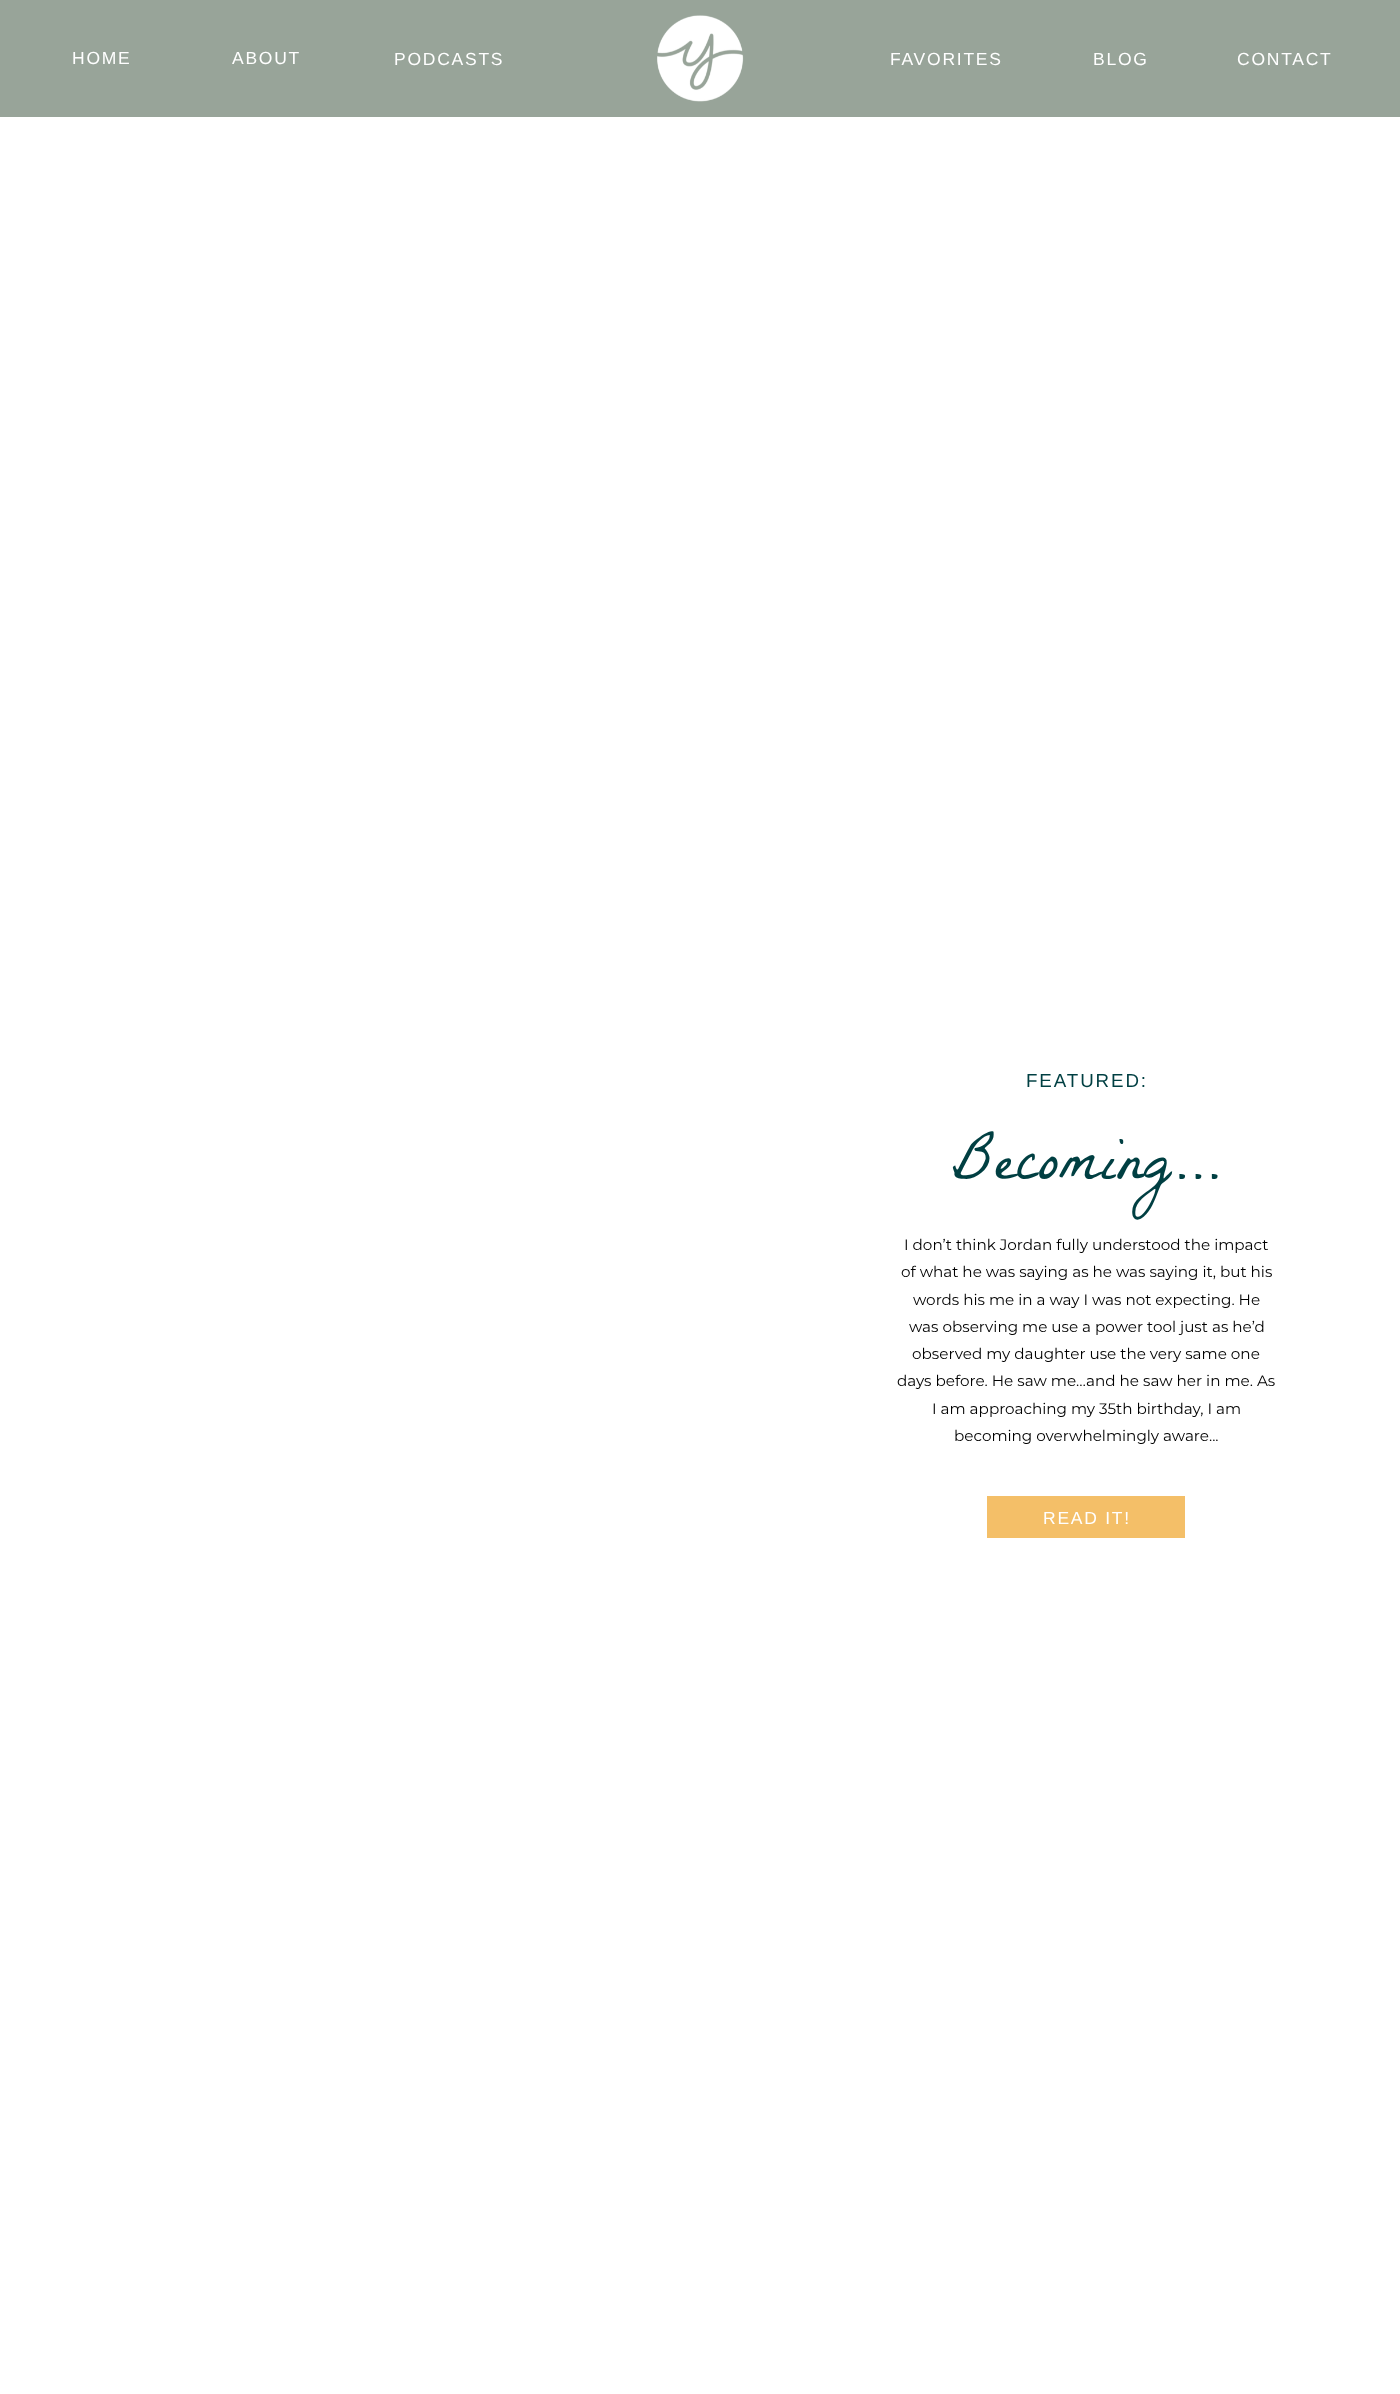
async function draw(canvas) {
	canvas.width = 1400;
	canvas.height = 2394;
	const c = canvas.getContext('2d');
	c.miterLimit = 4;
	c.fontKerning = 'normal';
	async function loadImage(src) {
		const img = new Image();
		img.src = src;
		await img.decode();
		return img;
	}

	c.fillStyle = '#fff';
	c.fillRect(0, 0, 1400, 2394);
	c.fillStyle = '#98a499';
	c.fillRect(0, 0, 1400, 117);
	c.letterSpacing = '1.75px';
	c.font = '17.5px Liberation Sans';
	c.fillStyle = '#fff';
	for (const [text, x, y] of [
		['HOME', 72, 64],
		['ABOUT', 232, 64],
		['PODCASTS', 394, 65],
	]) {
		c.fillText(text, x, y);
	}
	c.drawImage(await loadImage('img1.png'), 657, 15, 87, 87);
	for (const [text, x, y] of [
		['FAVORITES', 890, 65],
		['BLOG', 1093, 65],
		['CONTACT', 1237, 65],
	]) {
		c.fillText(text, x, y);
	}
	c.letterSpacing = '1.9px';
	c.font = '18.75px Liberation Sans';
	c.fillStyle = '#003f42';
	c.fillText('FEATURED:', 1026, 1087);
	c.letterSpacing = '0px';
	c.font = '63px La Belle Aurore';
	c.fillText('Becoming...', 952, 1179);
	c.font = '15.2px Montserrat';
	c.fillStyle = '#000';
	for (const [text, x, y] of [
		['I don’t think Jordan fully understood the impact', 904, 1250],
		['of what he was saying as he was saying it, but his', 901, 1277],
		['words his me in a way I was not expecting. He', 913, 1305],
		['was observing me use a power tool just as he’d', 909, 1332],
		['observed my daughter use the very same one', 912, 1359],
		['days before. He saw me…and he saw her in me. As', 897, 1386],
		['I am approaching my 35th birthday, I am', 932, 1414],
		['becoming overwhelmingly aware...', 954, 1441],
	]) {
		c.fillText(text, x, y);
	}
	c.fillStyle = '#f4bf68';
	c.fillRect(987, 1496, 198, 42);
	c.letterSpacing = '1.75px';
	c.font = '17.5px Liberation Sans';
	c.fillStyle = '#fff';
	c.fillText('READ IT!', 1043, 1524);
}

draw(document.querySelector('canvas'));
